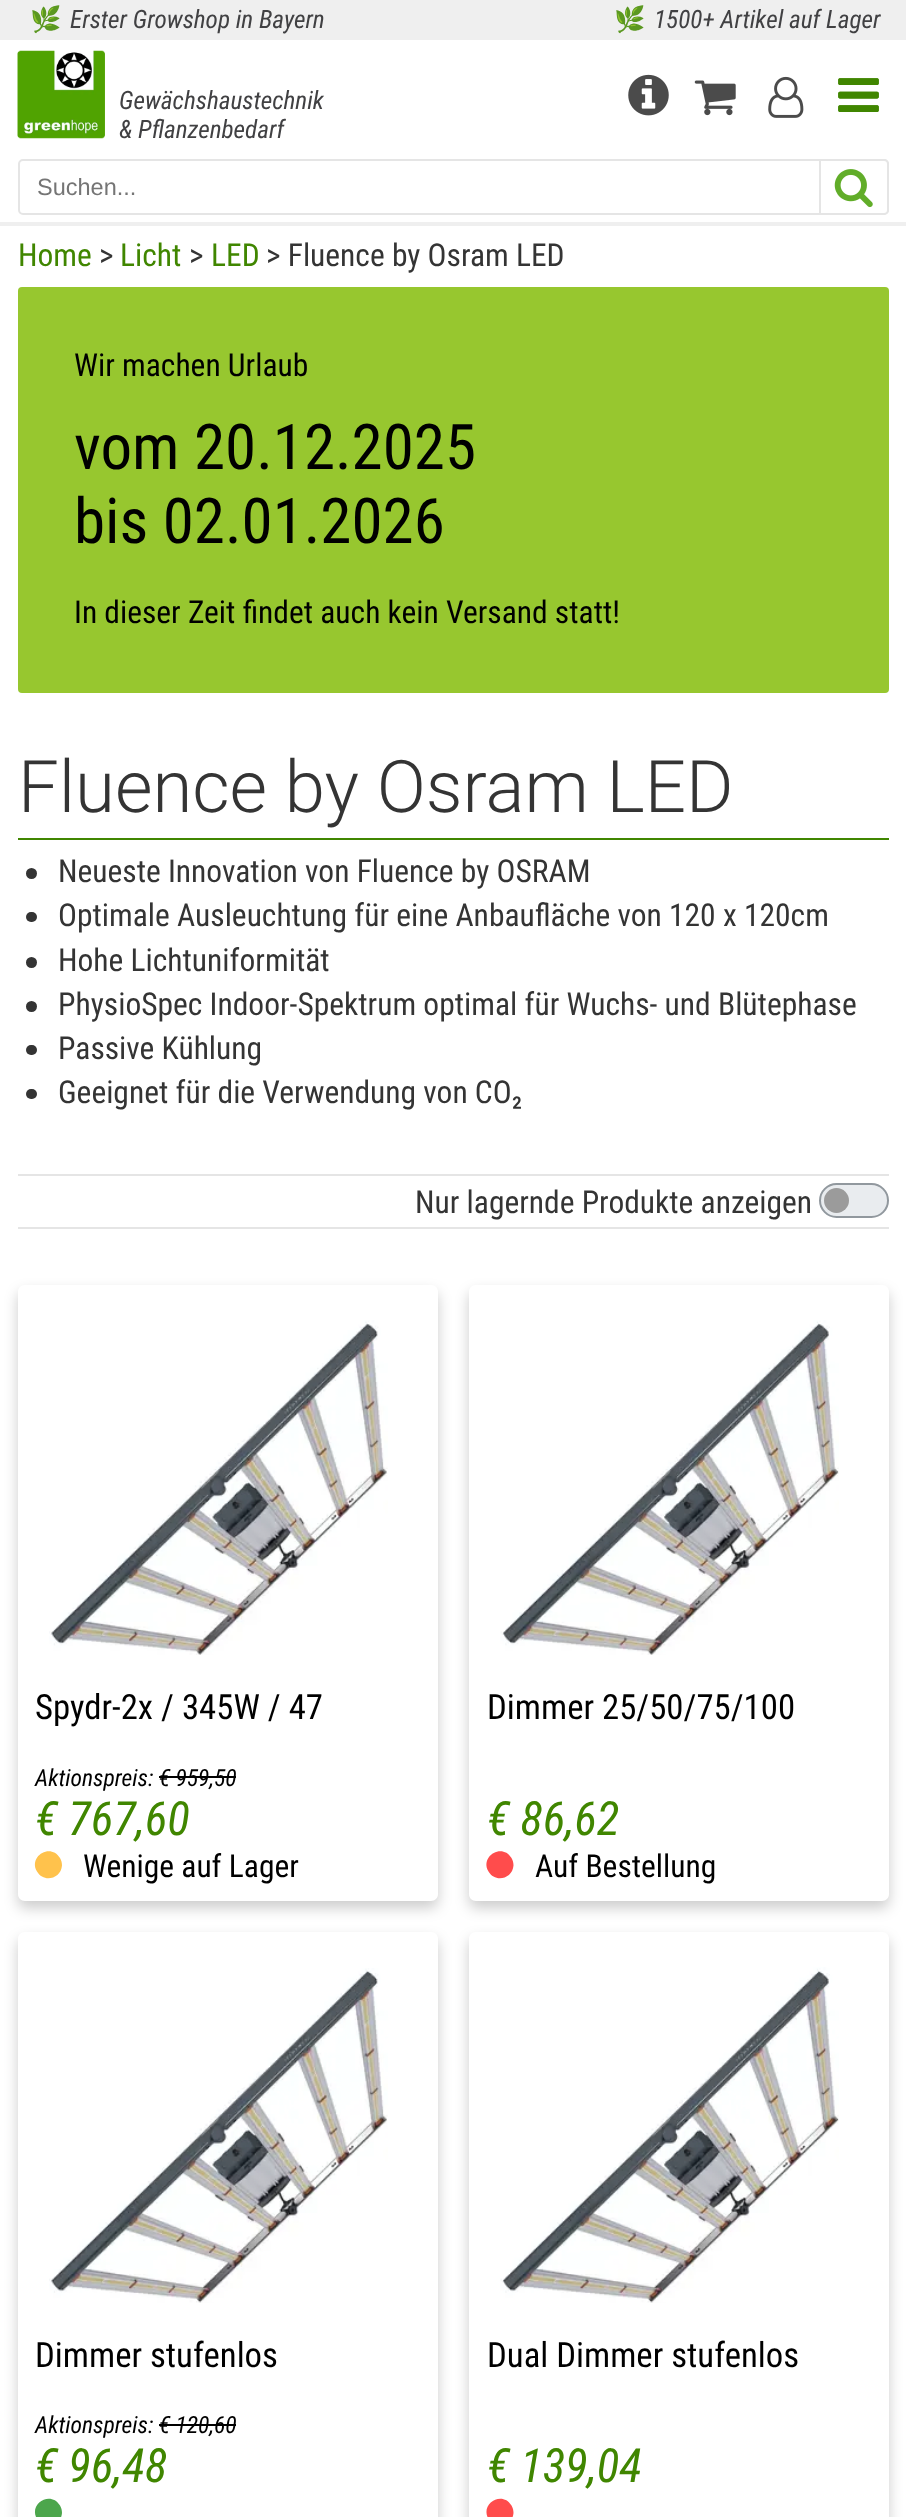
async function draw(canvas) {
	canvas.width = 906;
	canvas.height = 2517;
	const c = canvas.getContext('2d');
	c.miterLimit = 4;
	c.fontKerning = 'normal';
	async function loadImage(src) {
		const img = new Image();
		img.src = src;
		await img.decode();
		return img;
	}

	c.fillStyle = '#fff';
	c.fillRect(0, 0, 906, 2517);
	c.fillStyle = '#efefef';
	c.fillRect(0, 0, 906, 40);
	c.font = '25.25px Noto Color Emoji';
	c.fillStyle = '#408600';
	c.fillText('🌿', 30, 28);
	c.font = 'italic 25.25px Roboto Condensed';
	c.fillStyle = '#414143';
	c.fillText('Erster Growshop in Bayern', 70, 28);
	c.font = '25.25px Noto Color Emoji';
	c.fillStyle = '#408600';
	c.fillText('🌿', 614, 28);
	c.font = 'italic 25.25px Roboto Condensed';
	c.fillStyle = '#414143';
	c.fillText('1500+ Artikel auf Lager', 654, 28);
	c.drawImage(await loadImage('img1.png'), 628, 74, 41, 42);
	c.drawImage(await loadImage('img2.png'), 694, 80, 42, 36);
	c.drawImage(await loadImage('img3.png'), 768, 76, 36, 42);
	c.drawImage(await loadImage('img6.png'), 838, 78, 41, 34);
	c.drawImage(await loadImage('img4.png'), 838, 78, 41, 34);
	c.drawImage(await loadImage('img5.png'), 17, 50, 88, 89);
	c.fillText('Gewächshaustechnik', 119, 109);
	c.fillText('& Pflanzenbedarf', 119, 138);
	c.beginPath();
	c.roundRect(19, 160, 869, 54, 4);
	c.strokeStyle = '#e5e5e5';
	c.lineWidth = 2;
	c.stroke();
	c.font = '23.5px Liberation Sans';
	c.fillStyle = '#757575';
	c.fillText('Suchen...', 37, 195);
	c.fillStyle = '#fff';
	c.beginPath();
	c.roundRect(820, 160, 68, 54, [0, 4, 4, 0]);
	c.fill();
	c.stroke();
	c.drawImage(await loadImage('img7.png'), 834, 169, 39, 39);
	c.fillStyle = '#efefef';
	c.fillRect(0, 222, 906, 4);
	c.font = '31.5px Roboto Condensed';
	c.fillStyle = '#408600';
	c.fillText('Home', 18, 266);
	c.fillStyle = '#343434';
	c.fillText('>', 99, 266);
	c.fillStyle = '#408600';
	c.fillText('Licht', 120, 266);
	c.fillStyle = '#343434';
	c.fillText('>', 189, 266);
	c.fillStyle = '#408600';
	c.fillText('LED', 211, 266);
	c.fillStyle = '#343434';
	c.fillText('> Fluence by Osram LED', 266, 266);
	c.fillStyle = '#97c72f';
	c.beginPath();
	c.roundRect(18, 287, 871, 406, 4);
	c.fill();
	c.fillStyle = '#000';
	c.fillText('Wir machen Urlaub', 74, 376);
	c.font = '63px Roboto Condensed';
	c.fillText('vom 20.12.2025', 74, 469);
	c.fillText('bis 02.01.2026', 74, 543);
	c.font = '31.5px Roboto Condensed';
	c.fillText('In dieser Zeit findet auch kein Versand statt!', 74, 623);
	c.fillStyle = '#408600';
	c.fillRect(18, 838, 871, 2);
	c.font = '300 72.5px Roboto';
	c.fillStyle = '#343434';
	c.fillText('Fluence by Osram LED', 18, 812);
	c.beginPath();
	c.arc(31.5, 873.5, 5.5, 0, 2 * Math.PI);
	c.fill();
	c.font = '31.5px Roboto Condensed';
	c.fillText('Neueste Innovation von Fluence by OSRAM', 58, 882);
	c.beginPath();
	c.roundRect(26, 912, 11, 10, 5);
	c.fill();
	c.fillText('Optimale Ausleuchtung für eine Anbaufläche von 120 x 120cm', 58, 926);
	c.beginPath();
	c.arc(31.5, 962.5, 5.5, 0, 2 * Math.PI);
	c.fill();
	c.fillText('Hohe Lichtuniformität', 58, 971);
	c.beginPath();
	c.arc(31.5, 1006.5, 5.5, 0, 2 * Math.PI);
	c.fill();
	c.fillText('PhysioSpec Indoor-Spektrum optimal für Wuchs- und Blütephase', 58, 1015);
	c.beginPath();
	c.roundRect(26, 1045, 11, 10, 5);
	c.fill();
	c.fillText('Passive Kühlung', 58, 1059);
	c.beginPath();
	c.roundRect(26, 1089, 11, 10, 5);
	c.fill();
	c.fillText('Geeignet für die Verwendung von CO₂', 58, 1103);
	c.fillStyle = '#e5e5e5';
	c.fillRect(18, 1174, 871, 2);
	c.fillRect(18, 1227, 871, 2);
	c.fillStyle = '#343434';
	c.fillText('Nur lagernde Produkte anzeigen', 415, 1213);
	c.fillStyle = '#e9ecef';
	c.beginPath();
	c.roundRect(820, 1184, 68, 33, 16.5);
	c.fill();
	c.strokeStyle = '#91989e';
	c.stroke();
	c.fillStyle = '#9b9b9b';
	c.beginPath();
	c.arc(836.5, 1200.5, 12.5, 0, 2 * Math.PI);
	c.fill();
	c.save();
	c.beginPath();
	c.moveTo(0, 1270);
	c.lineTo(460, 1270);
	c.lineTo(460, 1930);
	c.lineTo(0, 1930);
	c.closePath();
	c.moveTo(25, 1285);
	c.lineTo(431, 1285);
	c.bezierCurveTo(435, 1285, 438, 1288, 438, 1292);
	c.lineTo(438, 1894);
	c.bezierCurveTo(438, 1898, 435, 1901, 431, 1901);
	c.lineTo(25, 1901);
	c.bezierCurveTo(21, 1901, 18, 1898, 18, 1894);
	c.lineTo(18, 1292);
	c.bezierCurveTo(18, 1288, 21, 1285, 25, 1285);
	c.closePath();
	c.clip('evenodd');
	c.fillStyle = '#00000033';
	c.filter = 'blur(7px)';
	c.beginPath();
	c.roundRect(18, 1292, 420, 616, 7);
	c.fill();
	c.filter = 'none';
	c.restore();
	c.drawImage(await loadImage('img8.png'), 49, 1320, 339, 335);
	c.font = '34.75px Roboto Condensed';
	c.fillStyle = '#000';
	c.fillText('Spydr-2x / 345W / 47', 35, 1719);
	c.font = 'italic 23.6px Roboto Condensed';
	c.fillText('Aktionspreis: € 959,50', 35, 1786);
	c.fillRect(159, 1776, 77, 2);
	c.font = 'italic 47px Roboto Condensed';
	c.fillStyle = '#408600';
	c.fillText('€ 767,60', 35, 1835);
	c.fillStyle = '#ffc24c';
	c.beginPath();
	c.moveTo(60, 1858);
	c.bezierCurveTo(61.5, 1860.5, 62, 1863, 62, 1865.5);
	c.bezierCurveTo(61, 1879, 43.5, 1883, 37, 1871.5);
	c.bezierCurveTo(28, 1856, 51, 1842.5, 60, 1858);
	c.closePath();
	c.fill();
	c.font = '31.5px Roboto Condensed';
	c.fillStyle = '#000';
	c.fillText('Wenige auf Lager', 83, 1877);
	c.save();
	c.beginPath();
	c.moveTo(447, 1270);
	c.lineTo(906, 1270);
	c.lineTo(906, 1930);
	c.lineTo(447, 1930);
	c.closePath();
	c.moveTo(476, 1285);
	c.lineTo(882, 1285);
	c.bezierCurveTo(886, 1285, 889, 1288, 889, 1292);
	c.lineTo(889, 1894);
	c.bezierCurveTo(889, 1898, 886, 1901, 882, 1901);
	c.lineTo(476, 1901);
	c.bezierCurveTo(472, 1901, 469, 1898, 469, 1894);
	c.lineTo(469, 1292);
	c.bezierCurveTo(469, 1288, 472, 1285, 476, 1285);
	c.closePath();
	c.clip('evenodd');
	c.fillStyle = '#00000033';
	c.filter = 'blur(7px)';
	c.beginPath();
	c.roundRect(469, 1292, 420, 616, 7);
	c.fill();
	c.filter = 'none';
	c.restore();
	c.drawImage(await loadImage('img9.png'), 500, 1320, 339, 335);
	c.font = '34.75px Roboto Condensed';
	c.fillText('Dimmer 25/50/75/100', 487, 1719);
	c.font = 'italic 47px Roboto Condensed';
	c.fillStyle = '#408600';
	c.fillText('€ 86,62', 487, 1835);
	c.fillStyle = '#ff4c4c';
	c.beginPath();
	c.moveTo(511.5, 1858);
	c.bezierCurveTo(513, 1860.5, 513.5, 1863, 513.5, 1865.5);
	c.bezierCurveTo(512.5, 1879, 495, 1883, 488.5, 1871.5);
	c.bezierCurveTo(479.5, 1856, 502.5, 1842.5, 511.5, 1858);
	c.closePath();
	c.fill();
	c.font = '31.5px Roboto Condensed';
	c.fillStyle = '#000';
	c.fillText('Auf Bestellung', 535, 1877);
	c.save();
	c.beginPath();
	c.moveTo(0, 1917);
	c.lineTo(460, 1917);
	c.lineTo(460, 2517);
	c.lineTo(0, 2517);
	c.closePath();
	c.moveTo(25, 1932);
	c.lineTo(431, 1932);
	c.bezierCurveTo(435, 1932, 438, 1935, 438, 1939);
	c.lineTo(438, 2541);
	c.bezierCurveTo(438, 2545, 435, 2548, 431, 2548);
	c.lineTo(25, 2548);
	c.bezierCurveTo(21, 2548, 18, 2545, 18, 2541);
	c.lineTo(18, 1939);
	c.bezierCurveTo(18, 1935, 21, 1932, 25, 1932);
	c.closePath();
	c.clip('evenodd');
	c.fillStyle = '#00000033';
	c.filter = 'blur(7px)';
	c.beginPath();
	c.roundRect(18, 1939, 420, 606, 7);
	c.fill();
	c.filter = 'none';
	c.restore();
	c.drawImage(await loadImage('img10.png'), 49, 1968, 339, 335);
	c.font = '34.75px Roboto Condensed';
	c.fillText('Dimmer stufenlos', 35, 2367);
	c.font = 'italic 23.6px Roboto Condensed';
	c.fillText('Aktionspreis: € 120,60', 35, 2433);
	c.fillRect(159, 2424, 77, 2);
	c.font = 'italic 47px Roboto Condensed';
	c.fillStyle = '#408600';
	c.fillText('€ 96,48', 35, 2482);
	c.fillStyle = '#4ca64c';
	c.beginPath();
	c.moveTo(60, 2505.5);
	c.bezierCurveTo(61.5, 2508, 62, 2510.5, 62, 2513);
	c.bezierCurveTo(61, 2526.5, 43.5, 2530.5, 37, 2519);
	c.bezierCurveTo(28, 2503.5, 51, 2490, 60, 2505.5);
	c.closePath();
	c.fill();
	c.save();
	c.beginPath();
	c.moveTo(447, 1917);
	c.lineTo(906, 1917);
	c.lineTo(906, 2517);
	c.lineTo(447, 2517);
	c.closePath();
	c.moveTo(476, 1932);
	c.lineTo(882, 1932);
	c.bezierCurveTo(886, 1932, 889, 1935, 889, 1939);
	c.lineTo(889, 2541);
	c.bezierCurveTo(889, 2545, 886, 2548, 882, 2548);
	c.lineTo(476, 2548);
	c.bezierCurveTo(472, 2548, 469, 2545, 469, 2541);
	c.lineTo(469, 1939);
	c.bezierCurveTo(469, 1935, 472, 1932, 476, 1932);
	c.closePath();
	c.clip('evenodd');
	c.fillStyle = '#00000033';
	c.filter = 'blur(7px)';
	c.beginPath();
	c.roundRect(469, 1939, 420, 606, 7);
	c.fill();
	c.filter = 'none';
	c.restore();
	c.drawImage(await loadImage('img11.png'), 500, 1967, 339, 336);
	c.font = '34.75px Roboto Condensed';
	c.fillStyle = '#000';
	c.fillText('Dual Dimmer stufenlos', 487, 2367);
	c.font = 'italic 47px Roboto Condensed';
	c.fillStyle = '#408600';
	c.fillText('€ 139,04', 487, 2482);
	c.fillStyle = '#ff4c4c';
	c.beginPath();
	c.moveTo(511.5, 2505.5);
	c.bezierCurveTo(513, 2508, 513.5, 2510.5, 513.5, 2513);
	c.bezierCurveTo(512.5, 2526.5, 495, 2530.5, 488.5, 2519);
	c.bezierCurveTo(479.5, 2503.5, 502.5, 2490, 511.5, 2505.5);
	c.closePath();
	c.fill();
}

draw(document.querySelector('canvas'));
